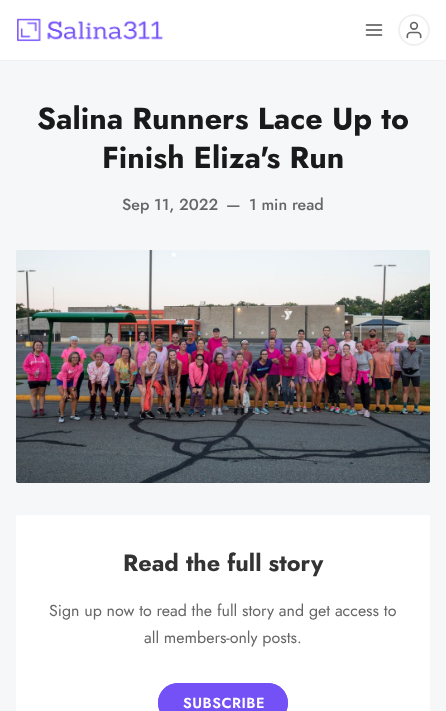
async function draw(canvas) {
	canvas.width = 446;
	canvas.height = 711;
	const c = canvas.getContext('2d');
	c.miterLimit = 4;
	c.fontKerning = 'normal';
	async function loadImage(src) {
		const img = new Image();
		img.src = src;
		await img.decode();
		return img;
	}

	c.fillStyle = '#f6f7f9';
	c.fillRect(0, 0, 446, 711);
	c.strokeStyle = '#f2f2f2';
	c.strokeRect(-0.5, -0.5, 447, 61);
	c.fillStyle = '#fff';
	c.fillRect(0, 0, 446, 60);
	c.drawImage(await loadImage('img1.png'), 17, 18, 146, 24);
	c.drawImage(await loadImage('img2.png'), 365, 24, 18, 12);
	c.beginPath();
	c.arc(414, 30, 15, 0, 2 * Math.PI);
	c.strokeStyle = '#f0f0f0';
	c.lineWidth = 2;
	c.stroke();
	c.drawImage(await loadImage('img3.png'), 406, 21, 16, 18);
	c.font = 'bold 30.5px Jost';
	c.fillStyle = '#1a1a1a';
	c.fillText('Salina Runners Lace Up to', 37, 129);
	c.fillText('Finish Eliza\'s Run', 102, 168);
	c.font = '500 16px Jost';
	c.fillStyle = '#666';
	for (const [text, x, y] of [
		['Sep 11, 2022', 122, 210],
		['—', 226, 210],
		['1 min read', 249, 210],
	]) {
		c.fillText(text, x, y);
	}
	c.drawImage(await loadImage('img4.png'), 16, 250, 414, 233);
	c.fillStyle = '#fff';
	c.beginPath();
	c.roundRect(16, 515, 414, 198, 2);
	c.fill();
	c.font = 'bold 23.5px Jost';
	c.fillStyle = '#333';
	c.fillText('Read the full story', 123, 571);
	c.font = '16px Jost';
	c.fillStyle = '#666';
	c.fillText('Sign up now to read the full story and get access to', 49, 616);
	c.fillText('all members-only posts.', 144, 643);
	c.fillStyle = '#7451f7';
	c.beginPath();
	c.roundRect(158, 683, 130, 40, 20);
	c.fill();
	c.beginPath();
	c.moveTo(178, 683);
	c.lineTo(268, 683);
	c.bezierCurveTo(279, 683, 288, 692, 288, 703);
	c.bezierCurveTo(288, 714, 279, 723, 268, 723);
	c.lineTo(178, 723);
	c.bezierCurveTo(167, 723, 158, 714, 158, 703);
	c.bezierCurveTo(158, 692, 167, 683, 178, 683);
	c.closePath();
	c.moveTo(178, 684);
	c.lineTo(268, 684);
	c.bezierCurveTo(278, 684, 287, 693, 287, 703);
	c.bezierCurveTo(287, 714, 278, 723, 268, 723);
	c.lineTo(178, 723);
	c.bezierCurveTo(168, 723, 159, 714, 159, 703);
	c.bezierCurveTo(159, 693, 168, 684, 178, 684);
	c.closePath();
	c.fill('evenodd');
	c.letterSpacing = '0.5px';
	c.font = '600 14.5px Jost';
	c.fillStyle = '#fff';
	c.fillText('SUBSCRIBE', 183, 708);
}

draw(document.querySelector('canvas'));
